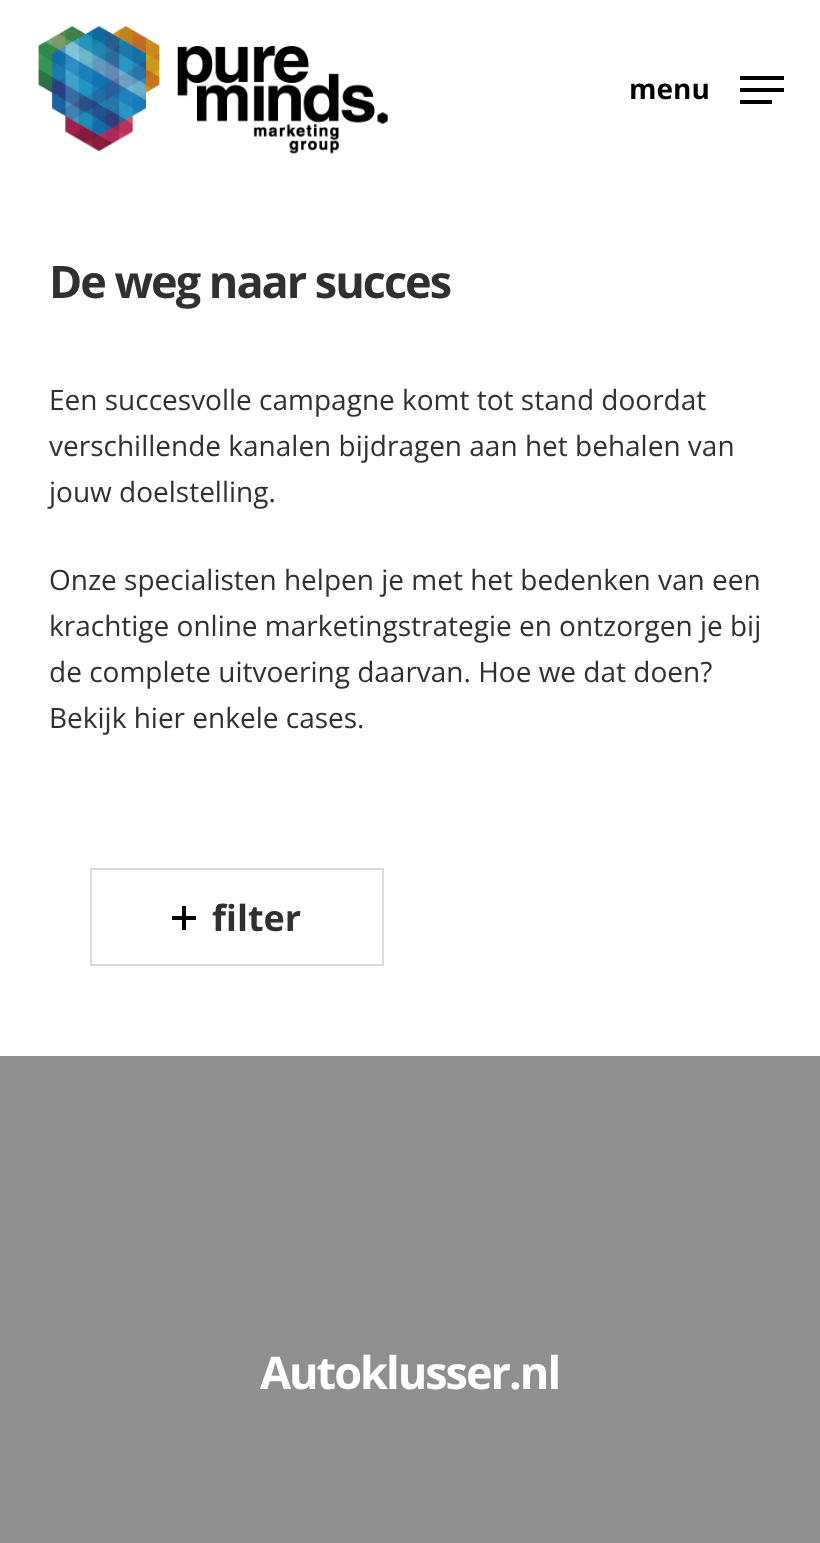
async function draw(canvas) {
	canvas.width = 820;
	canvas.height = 1543;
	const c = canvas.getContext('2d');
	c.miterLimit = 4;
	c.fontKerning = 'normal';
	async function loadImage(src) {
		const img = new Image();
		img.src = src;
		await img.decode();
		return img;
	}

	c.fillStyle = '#fff';
	c.fillRect(0, 0, 820, 1543);
	c.drawImage(await loadImage('img1.png'), 37, 25, 351, 129);
	c.font = 'bold 28px Open Sans';
	c.fillStyle = '#000';
	c.fillText('menu', 629, 99);
	for (const [x, y, w, h, color] of [
		[740, 76, 44, 4, '#000'],
		[740, 100, 32, 4, '#000'],
		[740, 88, 44, 4, '#000'],
	]) {
		c.fillStyle = color;
		c.fillRect(x, y, w, h);
	}
	c.letterSpacing = '-2px';
	c.font = 'bold 45px Open Sans';
	c.fillStyle = '#303030';
	c.fillText('De weg naar succes', 49, 298);
	c.letterSpacing = '0px';
	c.font = '28px Open Sans';
	for (const [text, x, y] of [
		['Een succesvolle campagne komt tot stand doordat', 49, 410],
		['verschillende kanalen bijdragen aan het behalen van', 49, 456],
		['jouw doelstelling.', 49, 502],
		['Onze specialisten helpen je met het bedenken van een', 49, 590],
		['krachtige online marketingstrategie en ontzorgen je bij', 49, 636],
		['de complete uitvoering daarvan. Hoe we dat doen?', 49, 682],
		['Bekijk hier enkele cases.', 49, 728],
	]) {
		c.fillText(text, x, y);
	}
	c.strokeStyle = '#d9d9d9';
	c.lineWidth = 2;
	c.strokeRect(91, 869, 292, 96);
	c.fillStyle = '#000';
	c.fillRect(182, 906, 4, 24);
	c.font = 'bold 36px Open Sans';
	c.fillStyle = '#303030';
	c.fillText('filter', 212, 931);
	c.fillStyle = '#000';
	c.fillRect(172, 916, 24, 4);
	c.fillStyle = '#8f8f8f';
	c.fillRect(0, 1056, 820, 487);
	c.letterSpacing = '-2px';
	c.font = 'bold 45px Open Sans';
	c.fillStyle = '#fff';
	c.fillText('Autoklusser.nl', 260, 1389);
}

draw(document.querySelector('canvas'));
